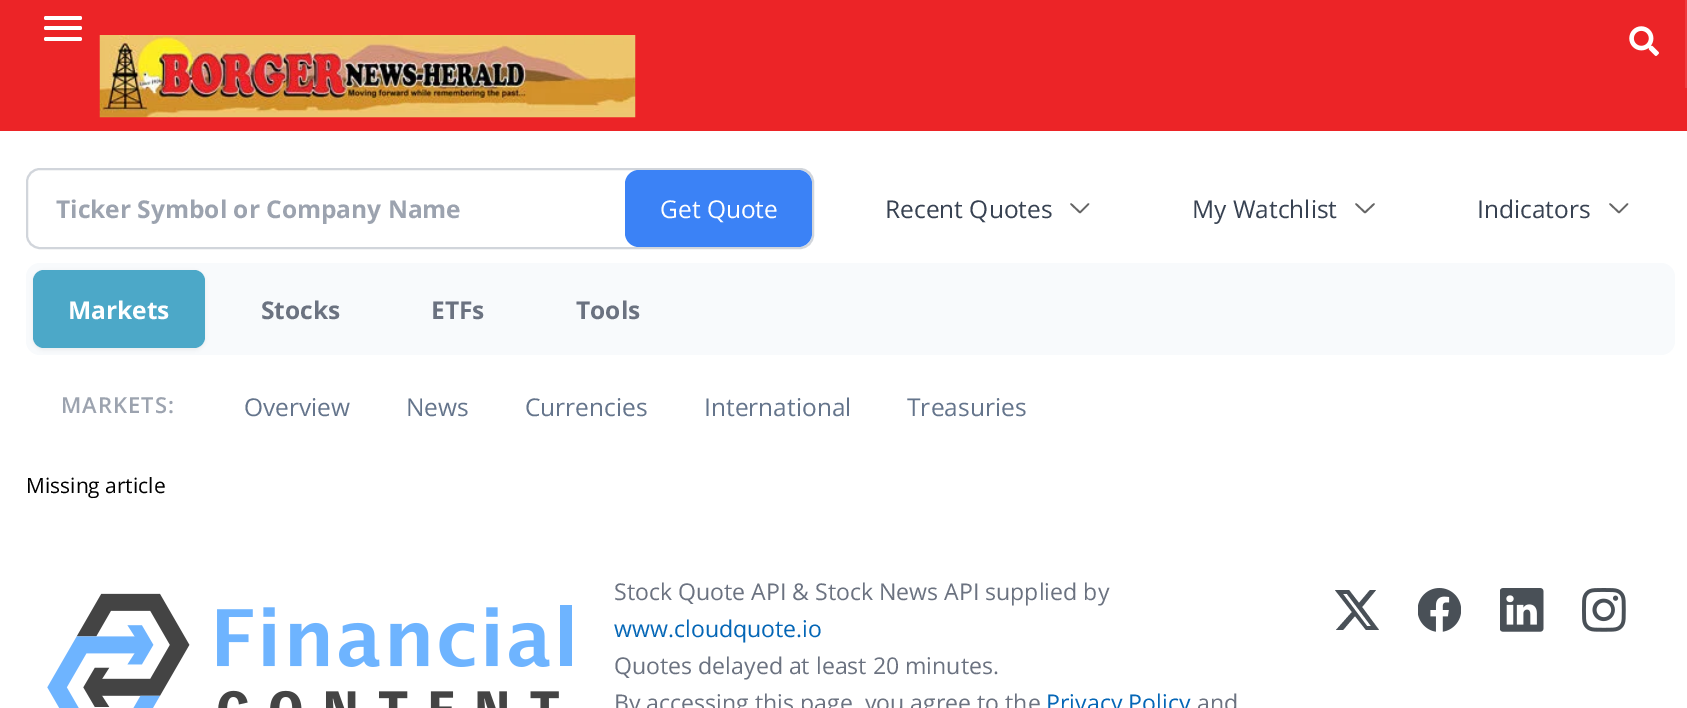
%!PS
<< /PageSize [1687 708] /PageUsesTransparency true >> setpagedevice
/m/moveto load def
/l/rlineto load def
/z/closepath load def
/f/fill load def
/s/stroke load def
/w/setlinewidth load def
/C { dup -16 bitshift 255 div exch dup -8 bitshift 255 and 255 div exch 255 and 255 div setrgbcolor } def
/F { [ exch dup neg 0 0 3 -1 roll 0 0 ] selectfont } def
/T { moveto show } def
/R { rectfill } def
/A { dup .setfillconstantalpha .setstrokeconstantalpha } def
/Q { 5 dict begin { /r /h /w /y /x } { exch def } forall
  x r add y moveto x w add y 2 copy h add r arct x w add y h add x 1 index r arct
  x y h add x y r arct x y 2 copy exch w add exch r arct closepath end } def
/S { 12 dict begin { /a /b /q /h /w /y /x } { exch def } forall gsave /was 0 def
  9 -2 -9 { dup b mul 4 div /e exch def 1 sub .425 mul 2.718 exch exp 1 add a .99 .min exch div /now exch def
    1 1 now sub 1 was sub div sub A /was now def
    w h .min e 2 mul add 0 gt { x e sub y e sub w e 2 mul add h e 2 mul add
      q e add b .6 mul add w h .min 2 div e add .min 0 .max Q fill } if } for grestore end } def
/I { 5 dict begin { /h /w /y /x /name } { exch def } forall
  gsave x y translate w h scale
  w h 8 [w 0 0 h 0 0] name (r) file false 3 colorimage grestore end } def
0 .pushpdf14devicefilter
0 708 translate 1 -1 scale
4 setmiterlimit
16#FFFFFF C
0 0 1687 708 R
16#EC2427 C
0 0 1687 131 R
16#FFFFFF C
44 16 38 4 2 Q f
44 26 38 4 2 Q f
44 37 38 4 2 Q f
16#EE3A3D C
1685 0 2 88 R
(1.rgb) 1629 26 30 30 I
(2.rgb) 99 35 537 83 I
16#D1D5DB C
2 w
27 169 786 79 13 Q s
/OpenSans-Bold 24.5 F
16#9CA3AF C
(Ticker Symbol or Company Name) 56 218 T
16#3B82F6 C
625 170 187 77 14 Q f
/OpenSans-Regular 24.5 F
16#FFFFFF C
(Get Quote) 660 218 T
16#374151 C
(Recent Quotes) 885 218 T
16#666666 C
1.7 w
1 setlinecap
1 setlinejoin
1088.5 204 m -8.5 8.5 l -9 -8.5 l s
16#374151 C
(My Watchlist) 1192 218 T
16#666666 C
1374 204 m -9 8.5 l -9 -8.5 l s
16#374151 C
(Indicators) 1477 218 T
16#666666 C
1627.5 204 m -8.5 8.5 l -9 -8.5 l s
16#F8FAFC C
26 263 1649 92 14 Q f
16#000000 C
33 271 172 79 11 2 .05 S
16#4CA8C8 C
33 270 172 78 11 Q f
/OpenSans-Bold 24.5 F
16#FFFFFF C
(Markets) 68 319 T
16#6B7280 C
(Stocks) 261 319 T
(ETFs) 431 319 T
(Tools) 576 319 T
/OpenSans-SemiBold 22 F
16#9CA3AF C
61 413 m 1 0 (MARKETS:) ashow
/OpenSans-Regular 24.5 F
16#64748B C
(Overview) 244 416 T
(News) 406 416 T
(Currencies) 525 416 T
(International) 704 416 T
(Treasuries) 907 416 T
/OpenSans-Regular 21 F
16#000000 C
(Missing article) 26 493 T
(3.rgb) 47 593 525 115 I
/OpenSans-Regular 23.1 F
16#6B7280 C
(Stock Quote API & Stock News API supplied by) 614 600 T
16#0466B6 C
(www.cloudquote.io) 614 637 T
16#6B7280 C
(Quotes delayed at least 20 minutes.) 614 674 T
(By accessing this page, you agree to the) 614 711 T
16#0466B6 C
(Privacy Policy) 1046 711 T
16#6B7280 C
(and) 1197 711 T
16#495057 C
1370 590 m 6 0 l -14 17 l 17 23 l -13 0 l -11 -14 l -12 14 l -7 0 l 16 -18 l -17 -22 l 14 0 l 10 13 l z 1367 626 m 4 0 l -24 -32 l -4 0 l z f
(4.rgb) 1418 588 43 44 I
(5.rgb) 1500 588 44 44 I
(6.rgb) 1582 588 44 44 I
.poppdf14devicefilter showpage
